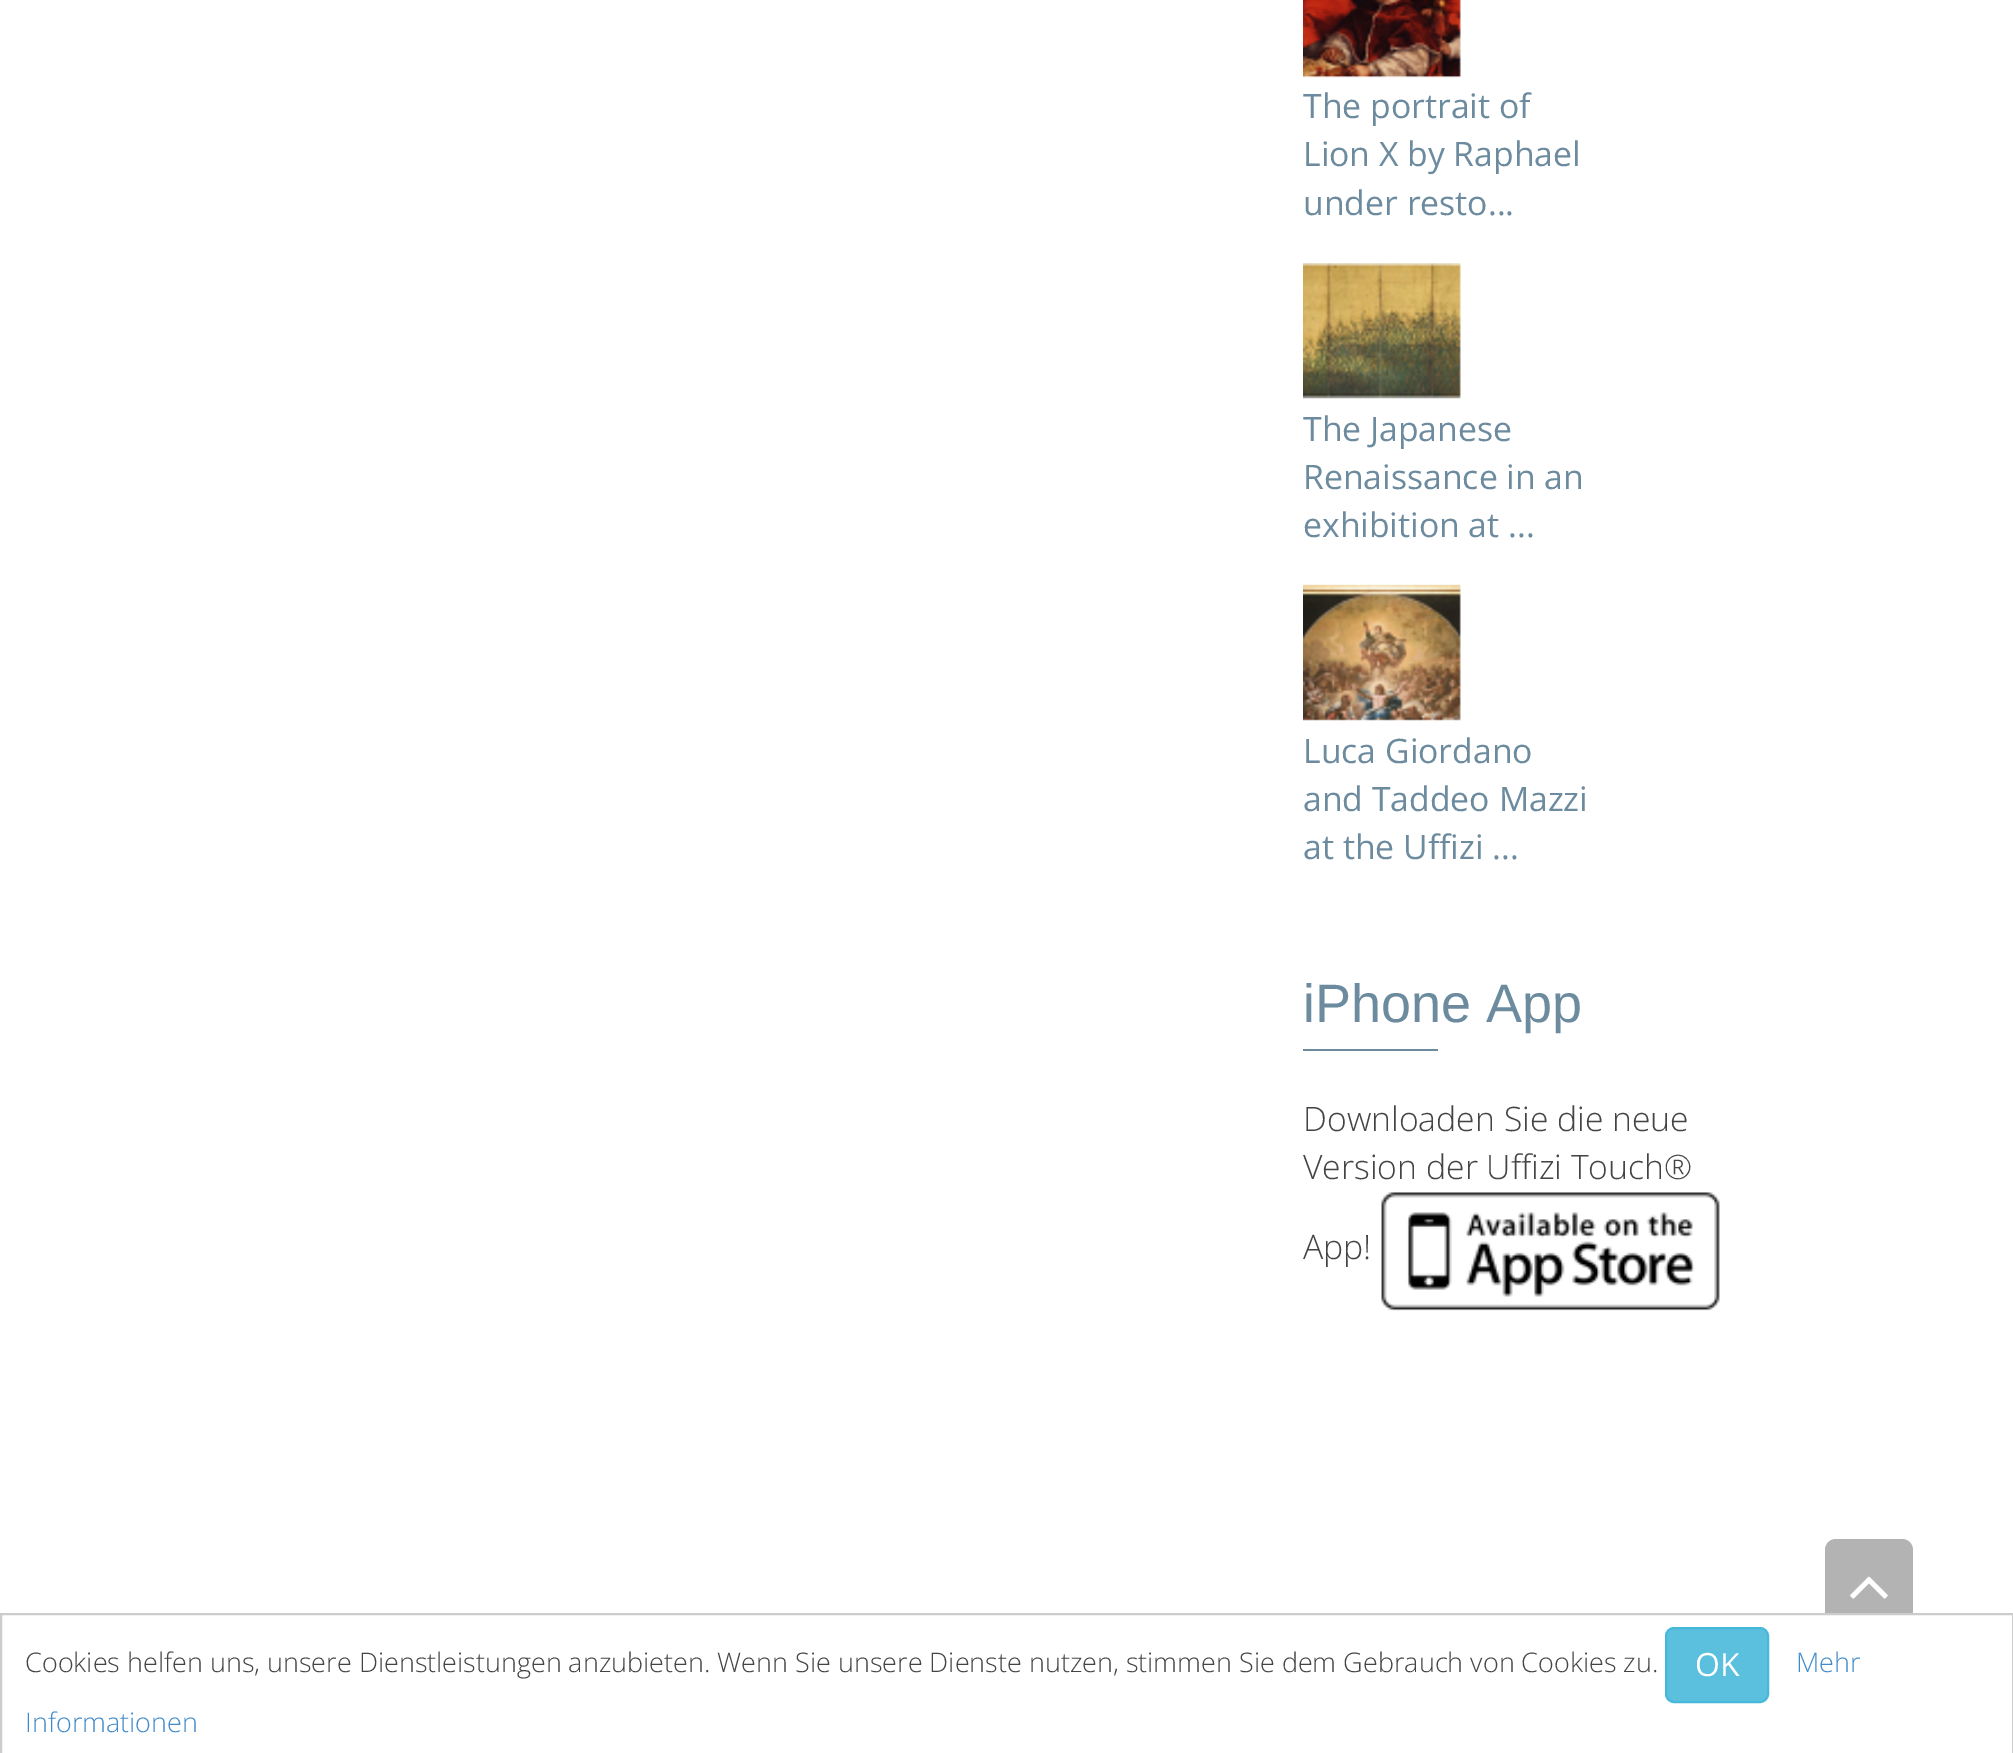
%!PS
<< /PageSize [2013 1753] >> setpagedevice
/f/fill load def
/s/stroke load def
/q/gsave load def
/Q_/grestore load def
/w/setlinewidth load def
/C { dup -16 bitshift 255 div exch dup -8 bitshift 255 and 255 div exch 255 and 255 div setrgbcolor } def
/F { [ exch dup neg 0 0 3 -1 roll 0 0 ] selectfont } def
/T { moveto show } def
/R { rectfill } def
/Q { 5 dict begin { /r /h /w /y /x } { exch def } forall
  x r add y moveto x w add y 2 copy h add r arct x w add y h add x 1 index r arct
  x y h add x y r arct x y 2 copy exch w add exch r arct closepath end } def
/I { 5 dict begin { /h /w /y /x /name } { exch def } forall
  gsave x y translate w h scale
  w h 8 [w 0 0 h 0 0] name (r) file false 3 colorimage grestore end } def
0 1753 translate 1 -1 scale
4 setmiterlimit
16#FFFFFF C
0 0 2013 1753 R
(1.rgb) 1303 0 158 78 I
/OpenSans-Regular 33.75 F
16#6D8B9F C
(The portrait of) 1303 118 T
(Lion X by Raphael) 1303 166 T
(under resto...) 1303 215 T
(2.rgb) 1303 263 158 136 I
(The Japanese) 1303 441 T
(Renaissance in an) 1303 489 T
(exhibition at ...) 1303 537 T
(3.rgb) 1303 584 158 137 I
(Luca Giordano) 1303 763 T
(and Taddeo Mazzi) 1303 811 T
(at the Uffizi ...) 1303 859 T
/LiberationSans-Regular 54 F
(iPhone App) 1303 1022 T
1303 1049 135 2 R
/OpenSans-Light 33.75 F
16#444444 C
(Downloaden Sie die neue) 1303 1131 T
(Version der Uffizi Touch®) 1303 1179 T
(App!) 1303 1259 T
(4.rgb) 1381 1192 339 119 I
16#B3B3B3 C
1825 1539 88 104 11 Q f
(5.rgb) 1850 1576 38 23 I
16#FFFFFF C
1825 1615 88 28 R
16#CCCCCC C
2 w
1 1614 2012 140 rectstroke
/OpenSans-Light 27 F
16#444444 C
(Cookies helfen uns, unsere Dienstleistungen anzubieten. Wenn Sie unsere Dienste nutzen, stimmen Sie dem Gebrauch von Cookies zu.) 25 1672 T
16#5BC0DE C
1666 1628 102 74 8 Q q f Q_
16#46B8DA C
s
/OpenSans-Regular 32 F
16#FFFFFF C
(OK) 1695 1676 T
/OpenSans-Light 27 F
16#428BCA C
(Mehr) 1796 1672 T
(Informationen) 25 1732 T
showpage
